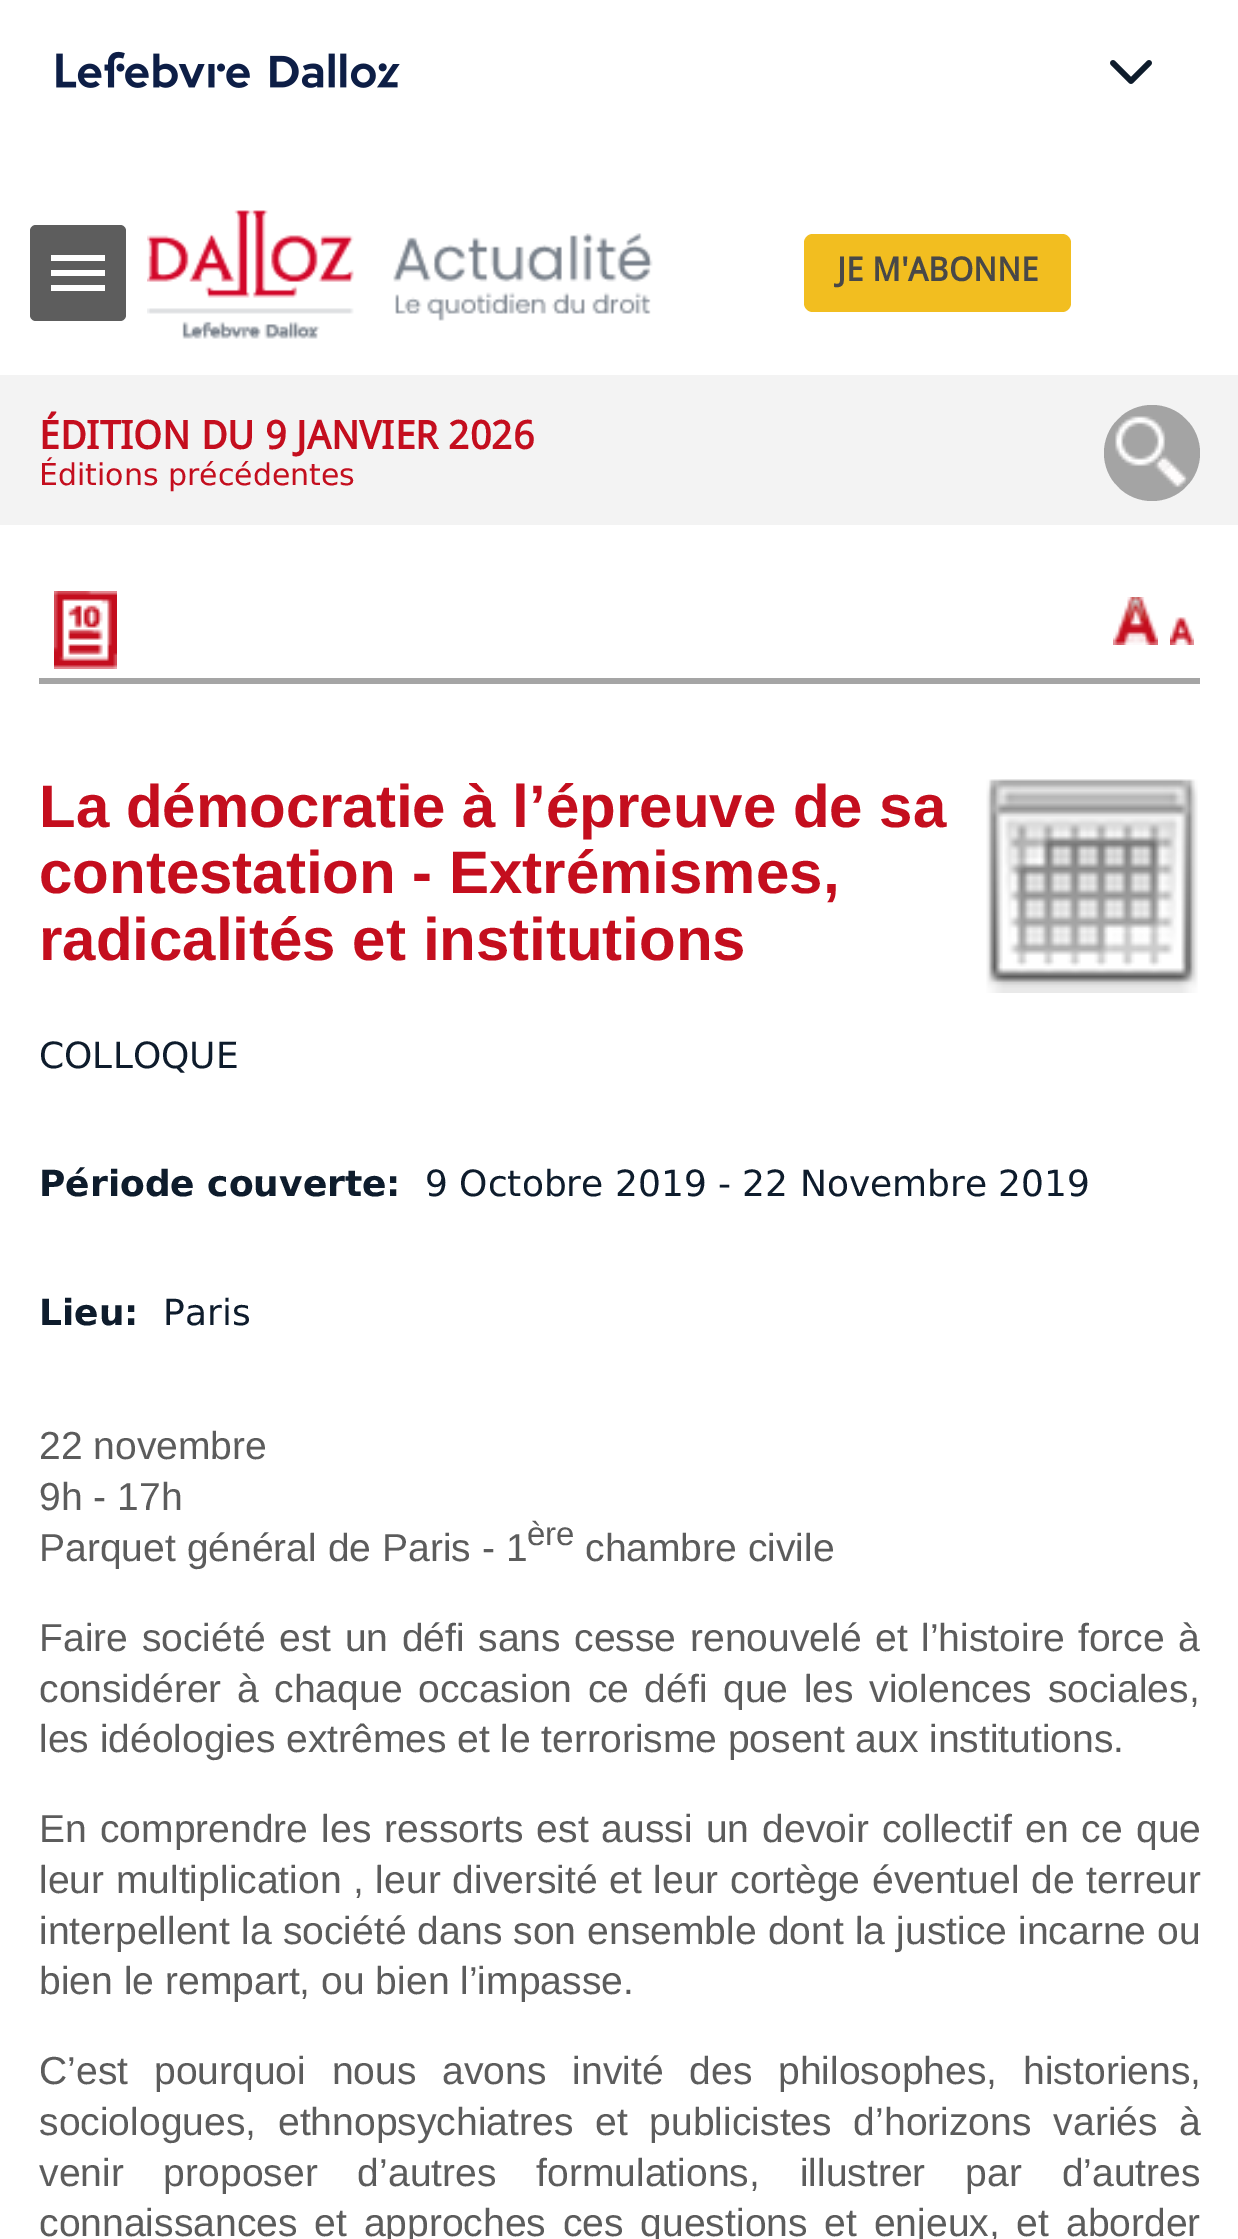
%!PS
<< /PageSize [1238 2239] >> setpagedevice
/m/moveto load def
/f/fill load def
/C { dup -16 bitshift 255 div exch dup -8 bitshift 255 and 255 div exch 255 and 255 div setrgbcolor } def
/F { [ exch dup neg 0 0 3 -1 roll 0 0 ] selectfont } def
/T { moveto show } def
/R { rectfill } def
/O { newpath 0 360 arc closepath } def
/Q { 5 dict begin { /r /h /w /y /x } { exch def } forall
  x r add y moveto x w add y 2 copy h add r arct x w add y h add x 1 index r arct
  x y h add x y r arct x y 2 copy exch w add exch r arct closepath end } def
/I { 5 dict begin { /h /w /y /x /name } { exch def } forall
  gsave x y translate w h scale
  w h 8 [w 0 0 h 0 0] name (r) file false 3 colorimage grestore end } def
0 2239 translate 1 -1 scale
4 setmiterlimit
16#FFFFFF C
0 0 1238 2239 R
(1.rgb) 56 51 344 37 I
(2.rgb) 1110 60 42 24 I
16#5D5D5D C
30 225 96 96 6 Q f
16#FFFFFF C
51 270 54 6 R
51 255 54 6 R
51 285 54 6 R
(3.rgb) 147 210 506 129 I
16#F2BE20 C
804 234 267 78 9 Q f
/DroidSans-Bold 33 F
16#484848 C
(JE M'ABONNE) 837 281 T
16#F3F3F3 C
0 375 1238 150 R
/DroidSans-Bold 39.05 F
16#C40E1E C
(ÉDITION DU 9 JANVIER 2026) 39 449 T
/DejaVuSans-Regular 30 F
(Éditions précédentes) 39 485 T
16#A4A4A4 C
1152 453 48 O f
(4.rgb) 1115 416 74 72 I
(5.rgb) 54 591 63 78 I
16#A5A5A5 C
39 678 1161 6 R
(6.rgb) 1113 597 45 48 I
(7.rgb) 1170 617 24 28 I
/LiberationSans-Bold 60 F
16#C40E1E C
(La démocratie à l’épreuve de sa) 39 827 T
(contestation - Extrémismes,) 39 893 T
(radicalités et institutions) 39 960 T
(8.rgb) 986 779 212 214 I
/DejaVuSans-Regular 36 F
16#0E1C2C C
(COLLOQUE) 39 1068 T
/DejaVuSans-Bold 36 F
(Période couverte:) 39 1196 T
/DejaVuSans-Regular 36 F
(9 Octobre 2019 - 22 Novembre 2019) 425 1196 T
/DejaVuSans-Bold 36 F
(Lieu:) 39 1325 T
/DejaVuSans-Regular 36 F
(Paris) 163 1325 T
/LiberationSans-Regular 39.05 F
16#5C5C5C C
(22 novembre) 39 1459 T
(9h - 17h) 39 1510 T
(Parquet général de Paris - 1) 39 1561 T
/LiberationSans-Regular 33 F
(ère) 527 1545 T
/LiberationSans-Regular 39.05 F
(chambre civile) 585 1561 T
39 1651 m 2.75 0 32 (Faire société est un défi sans cesse renouvelé et l’histoire force à) widthshow
39 1702 m 4.75 0 32 (considérer à chaque occasion ce défi que les violences sociales,) widthshow
39 1752 m -.25 0 32 (les idéologies extrêmes et le terrorisme posent aux institutions.) widthshow
39 1842 m 2.25 0 32 (En comprendre les ressorts est aussi un devoir collectif en ce que) widthshow
39 1893 m .75 0 32 (leur multiplication , leur diversité et leur cortège éventuel de terreur) widthshow
39 1944 m .25 0 32 (interpellent la société dans son ensemble dont la justice incarne ou) widthshow
(bien le rempart, ou bien l’impasse.) 39 1994 T
39 2084 m 15 0 32 (C’est pourquoi nous avons invité des philosophes, historiens,) widthshow
39 2135 m 11 0 32 (sociologues, ethnopsychiatres et publicistes d’horizons variés à) widthshow
39 2186 m 29 0 32 (venir proposer d’autres formulations, illustrer par d’autres) widthshow
39 2236 m 6 0 32 (connaissances et approches ces questions et enjeux, et aborder) widthshow
showpage
